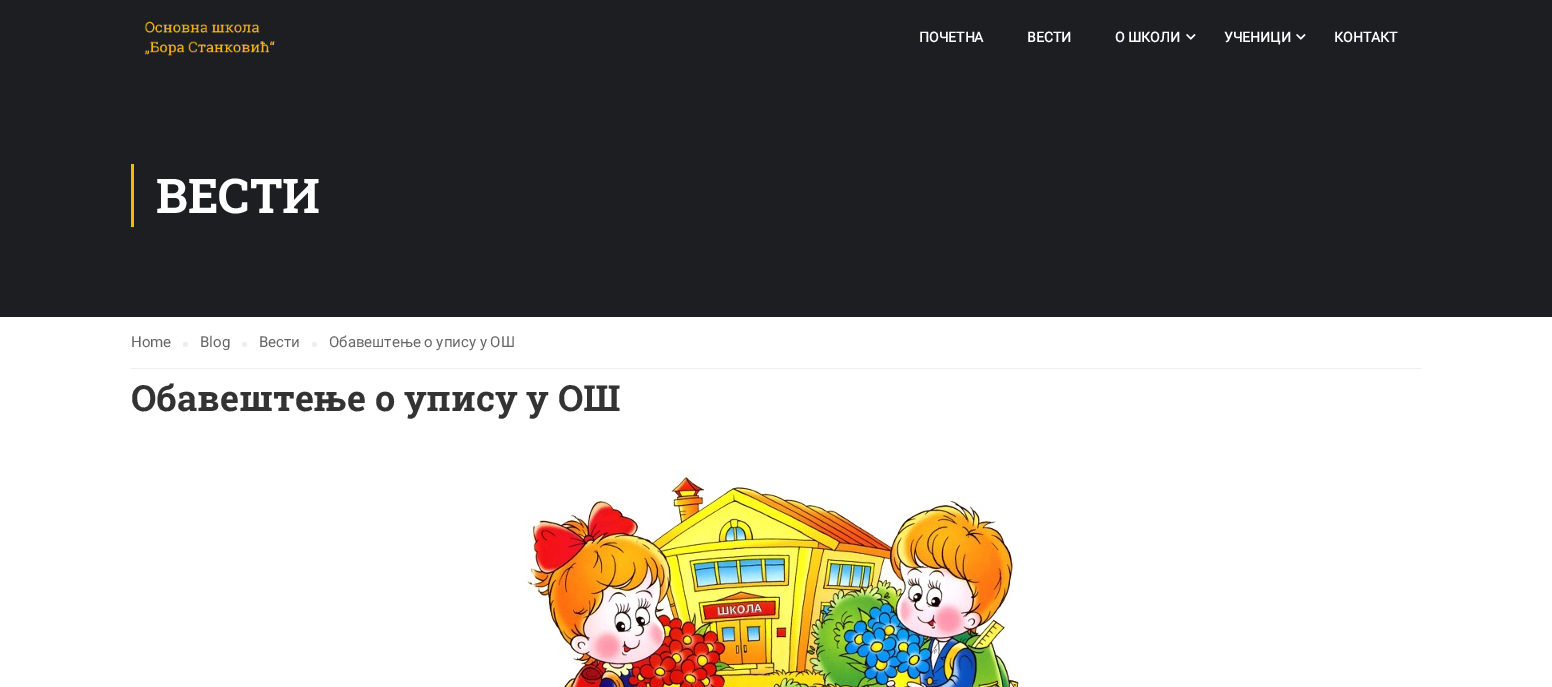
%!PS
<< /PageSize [1552 687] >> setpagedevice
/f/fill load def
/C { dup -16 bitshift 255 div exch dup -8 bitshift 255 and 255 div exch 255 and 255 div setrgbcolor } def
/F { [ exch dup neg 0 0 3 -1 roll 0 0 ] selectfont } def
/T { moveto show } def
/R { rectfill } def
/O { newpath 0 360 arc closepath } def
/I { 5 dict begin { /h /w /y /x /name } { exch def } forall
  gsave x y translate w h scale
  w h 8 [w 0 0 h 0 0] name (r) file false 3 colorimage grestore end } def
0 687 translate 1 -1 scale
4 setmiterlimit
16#FFFFFF C
0 0 1552 687 R
16#1C1E22 C
0 0 1552 317 R
(1.rgb) 144 21 131 35 I
/Roboto-Bold 14 F
16#FFFFFF C
(ПОЧЕТНА) 919 42 T
(ВЕСТИ) 1027 42 T
(О ШКОЛИ) 1115 42 T
(2.rgb) 1186 34 10 6 I
(УЧЕНИЦИ) 1224 42 T
(2.rgb) 1296 34 10 6 I
(КОНТАКТ) 1334 42 T
16#FFB606 C
131 164 3 63 R
/RobotoSlab-Bold 48 F
16#FFFFFF C
(ВЕСТИ) 156 213 T
16#EEEEEE C
131 368 1290 1 R
/Roboto-Regular 15 F
16#666666 C
(Home) 131 347 T
16#EEEEEE C
185.5 344.5 2.5 O f
16#666666 C
(Blog) 200 347 T
16#EEEEEE C
244.5 344.5 2.5 O f
16#666666 C
(Вести) 259 347 T
16#EEEEEE C
314.5 344.5 2.5 O f
16#666666 C
(Обавештење о упису у ОШ) 329 347 T
/RobotoSlab-Bold 36 F
16#333333 C
(Обавештење о упису у ОШ) 131 411 T
(3.rgb) 526 468 496 219 I
showpage
